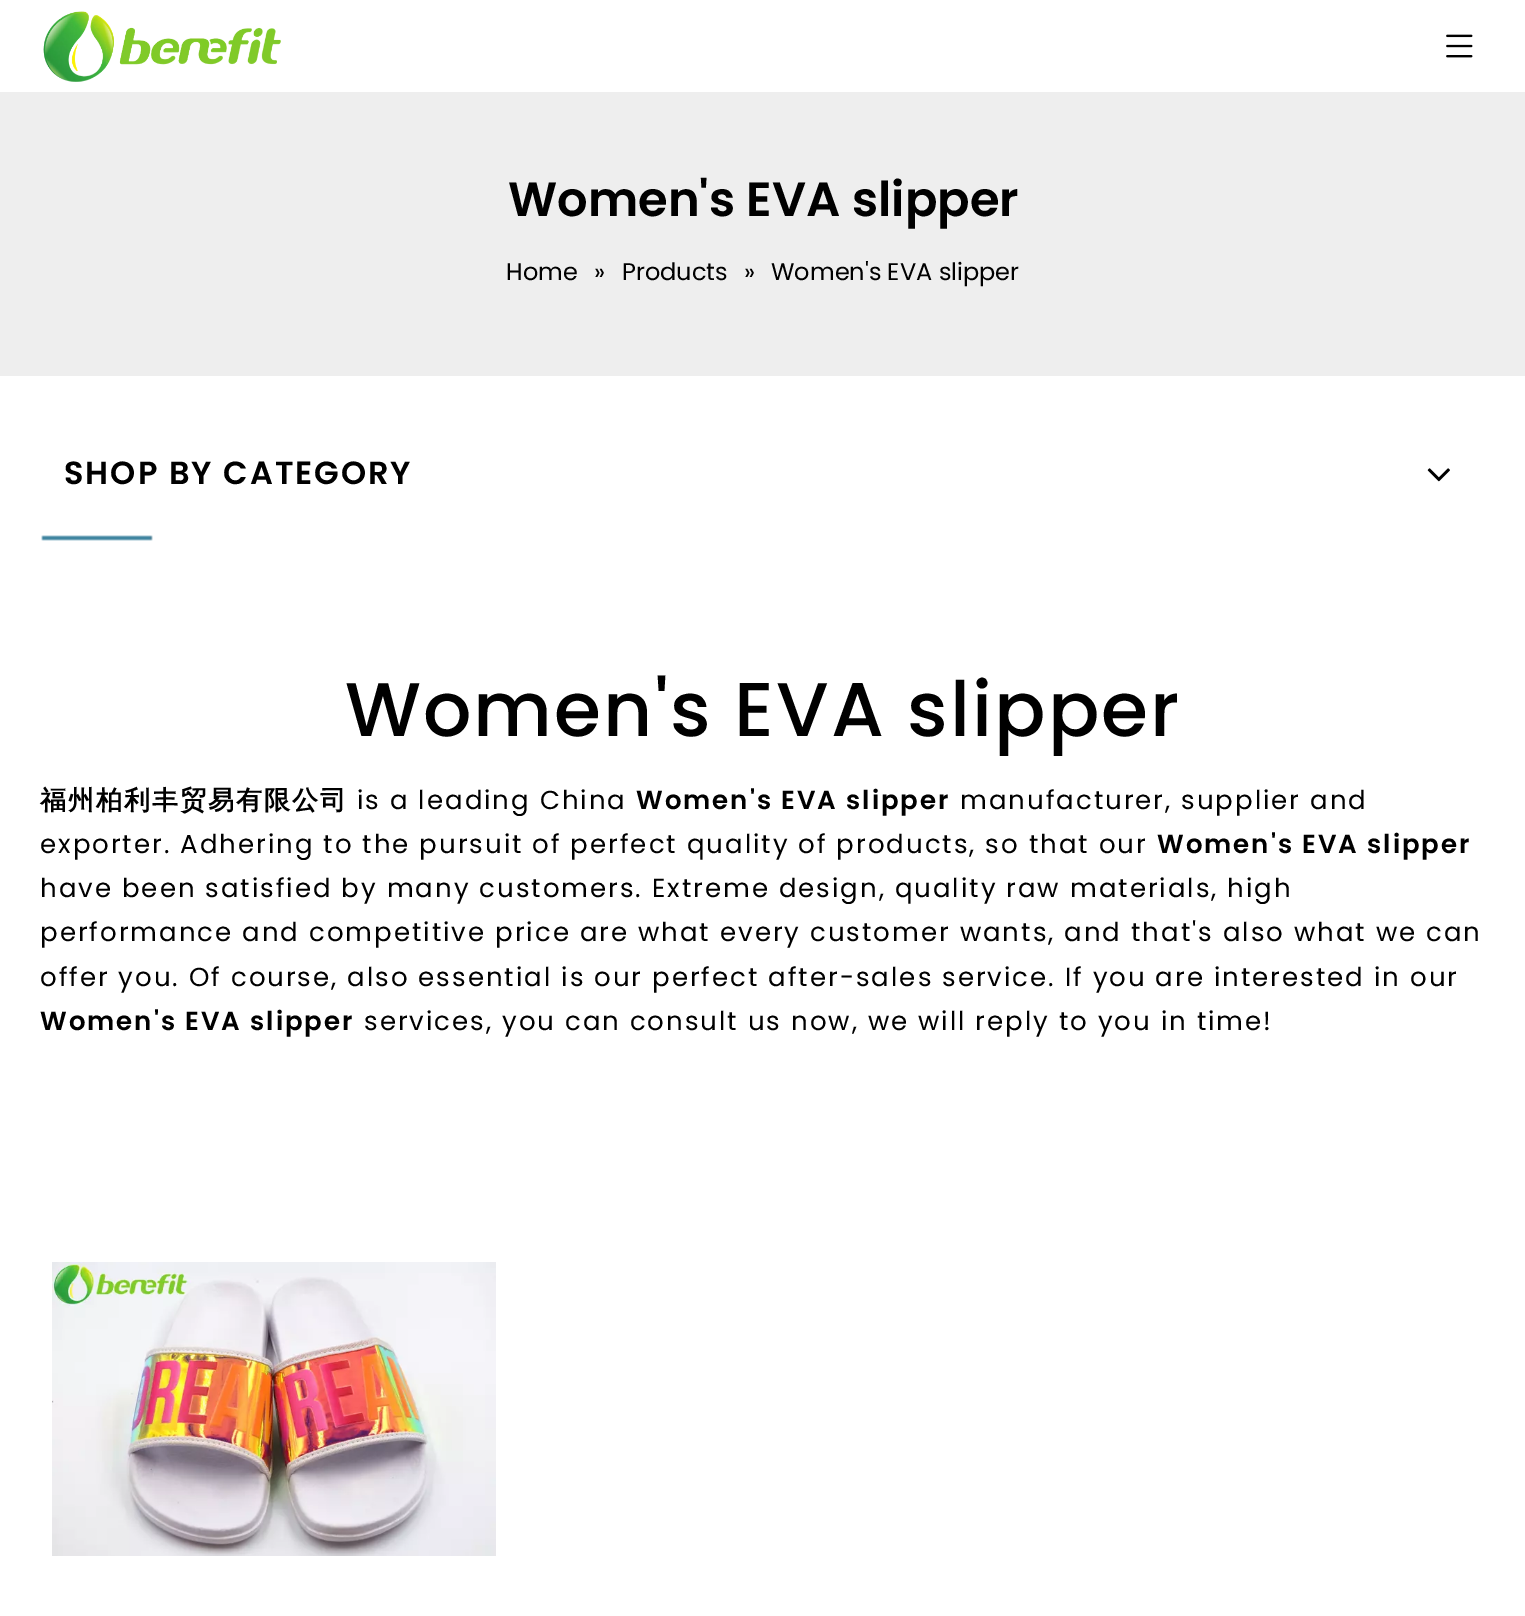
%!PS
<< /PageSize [1525 1616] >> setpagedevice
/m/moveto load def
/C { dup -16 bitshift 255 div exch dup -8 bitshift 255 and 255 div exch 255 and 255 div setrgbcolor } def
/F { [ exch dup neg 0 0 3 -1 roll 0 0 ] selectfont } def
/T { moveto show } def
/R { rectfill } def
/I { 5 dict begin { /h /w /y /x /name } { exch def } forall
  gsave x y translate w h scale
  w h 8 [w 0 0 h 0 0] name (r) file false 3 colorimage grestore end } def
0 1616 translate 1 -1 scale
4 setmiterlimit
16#FFFFFF C
0 0 1525 1616 R
(1.rgb) 43 11 238 71 I
(2.rgb) 1446 34 27 24 I
16#EEEEEE C
0 92 1525 284 R
/Poppins-SemiBold 48 F
16#000000 C
(Women's EVA slipper) 508 216 T
/Poppins-Regular 24 F
(Home) 506 280 T
(») 594 280 T
(Products) 622 280 T
(») 744 280 T
(Women's EVA slipper) 771 280 T
(3.rgb) 41 535 112 6 I
/Poppins-SemiBold 32 F
64 484 m 2 0 (SHOP BY CATEGORY) ashow
(4.rgb) 1427 468 23 14 I
/Poppins-Medium 76 F
345 736 m 2 0 (Women's EVA slipper) ashow
/WenQuanYiZenHei-Bold 26 F
40 809 m 2 0 (福州柏利丰贸易有限公司) ashow
/Poppins-Regular 26 F
357 809 m 2 0 (is a leading China) ashow
/Poppins-SemiBold 26 F
636 809 m 2 0 (Women's EVA slipper) ashow
/Poppins-Regular 26 F
960 809 m 2 0 (manufacturer, supplier and) ashow
40 853 m 2 0 (exporter. Adhering to the pursuit of perfect quality of products, so that our) ashow
/Poppins-SemiBold 26 F
1157 853 m 2 0 (Women's EVA slipper) ashow
/Poppins-Regular 26 F
40 897 m 2 0 (have been satisfied by many customers. Extreme design, quality raw materials, high) ashow
40 941 m 2 0 (performance and competitive price are what every customer wants, and that's also what we can) ashow
40 986 m 2 0 (offer you. Of course, also essential is our perfect after-sales service. If you are interested in our) ashow
/Poppins-SemiBold 26 F
40 1030 m 2 0 (Women's EVA slipper) ashow
/Poppins-Regular 26 F
364 1030 m 2 0 (services, you can consult us now, we will reply to you in time!) ashow
(5.rgb) 52 1262 444 294 I
showpage
